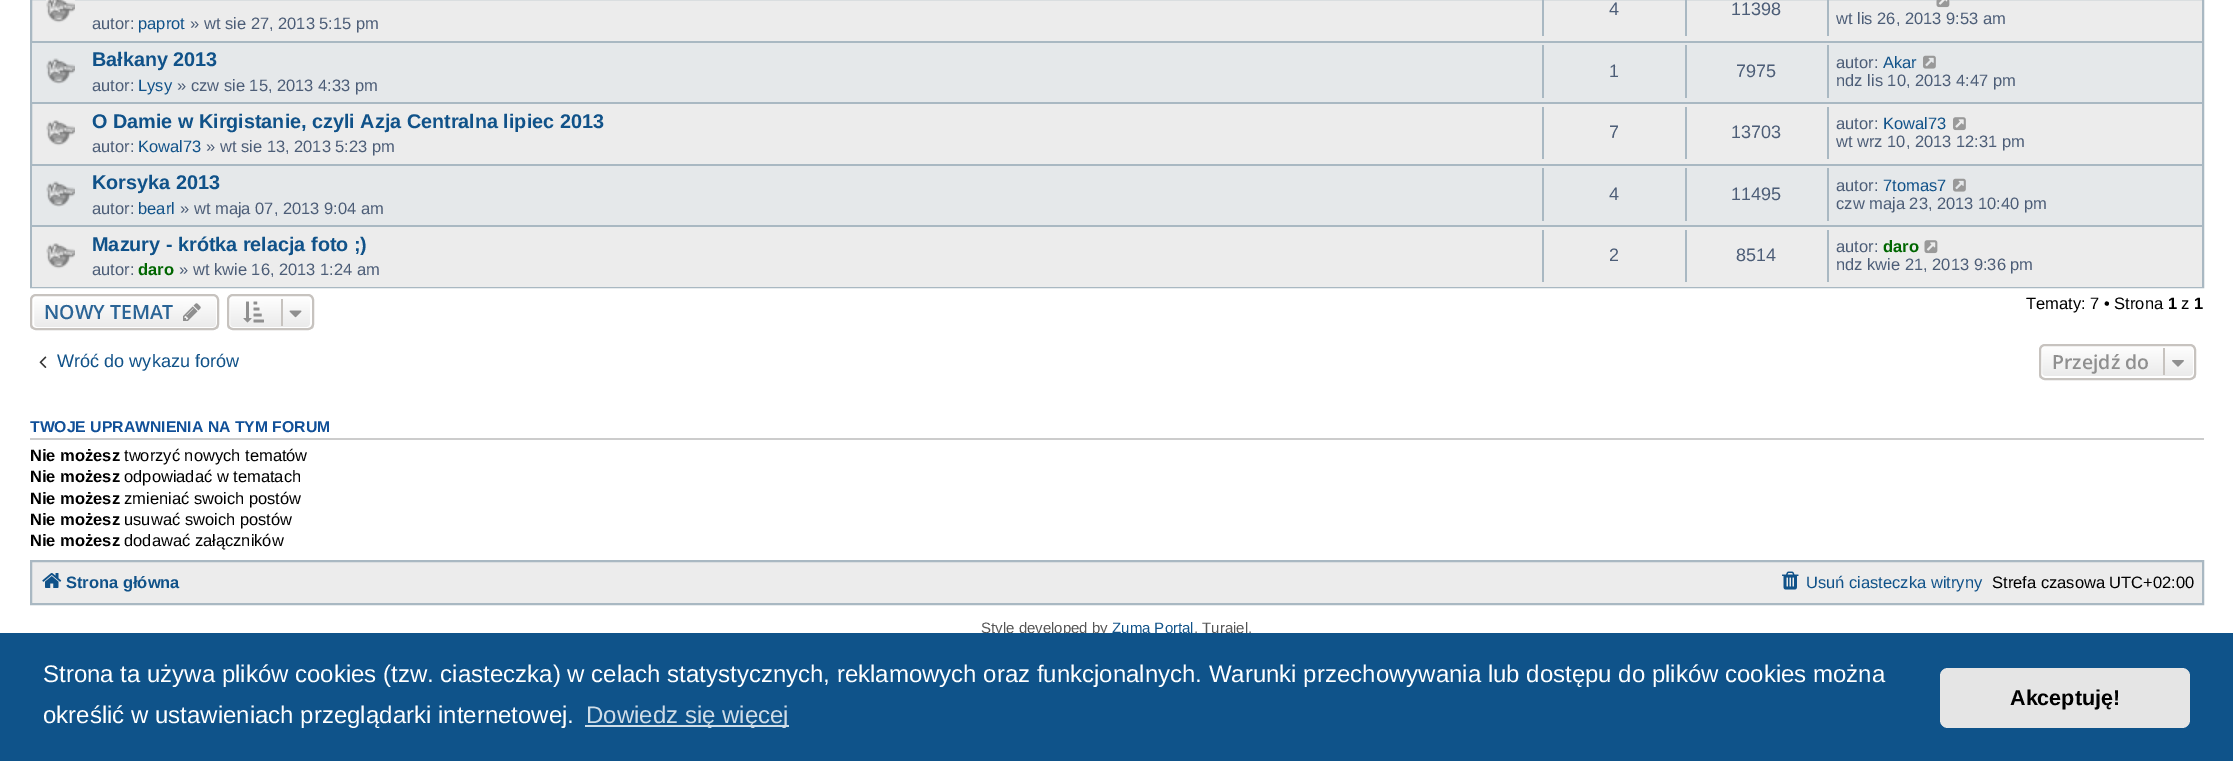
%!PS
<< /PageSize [2233 761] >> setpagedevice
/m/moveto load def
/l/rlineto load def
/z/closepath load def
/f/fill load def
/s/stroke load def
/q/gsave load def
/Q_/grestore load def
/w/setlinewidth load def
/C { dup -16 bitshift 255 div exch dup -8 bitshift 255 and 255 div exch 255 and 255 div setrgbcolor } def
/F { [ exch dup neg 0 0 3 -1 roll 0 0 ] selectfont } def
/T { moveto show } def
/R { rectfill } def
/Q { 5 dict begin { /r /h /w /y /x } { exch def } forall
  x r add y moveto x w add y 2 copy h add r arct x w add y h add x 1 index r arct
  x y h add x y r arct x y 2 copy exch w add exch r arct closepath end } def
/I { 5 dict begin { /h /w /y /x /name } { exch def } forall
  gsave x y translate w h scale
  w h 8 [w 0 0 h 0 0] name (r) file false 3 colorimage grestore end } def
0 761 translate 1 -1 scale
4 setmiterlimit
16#FFFFFF C
0 0 2233 761 R
16#ECECEC C
32 0 2170 164 R
16#A9B8C2 C
2 w
31 -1 2172 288 rectstroke
(1.rgb) 46 0 29 23 I
1542 0 2 36 R
/LiberationSans-Regular 18 F
16#4C5D77 C
(4) 1609 15 T
16#A9B8C2 C
1685 0 2 36 R
16#4C5D77 C
(11398) 1731 15 T
/LiberationSans-Regular 16.5 F
(autor:) 92 29 T
16#105289 C
(paprot) 138 29 T
16#4C5D77 C
(» wt sie 27, 2013 5:15 pm) 190 29 T
16#A9B8C2 C
1827 0 2 36 R
(2.rgb) 1936 0 14 8 I
16#4C5D77 C
(wt lis 26, 2013 9:53 am) 1836 24 T
16#E5E8EA C
32 43 2170 59 R
16#A9B8C2 C
32 41 2170 2 R
(3.rgb) 46 58 29 26 I
/LiberationSans-Bold 19.8 F
16#105289 C
(Bałkany 2013) 92 66 T
/LiberationSans-Regular 16.5 F
16#4C5D77 C
(autor:) 92 91 T
16#105289 C
(Lysy) 138 91 T
16#4C5D77 C
(» czw sie 15, 2013 4:33 pm) 177 91 T
16#A9B8C2 C
1542 45 2 53 R
/LiberationSans-Regular 18 F
16#4C5D77 C
(1) 1609 77 T
16#A9B8C2 C
1685 45 2 53 R
16#4C5D77 C
(7975) 1736 77 T
16#A9B8C2 C
1827 45 2 53 R
/LiberationSans-Regular 16.5 F
16#4C5D77 C
(autor:) 1836 68 T
16#105289 C
(Akar) 1883 68 T
(4.rgb) 1923 55 13 14 I
16#4C5D77 C
(ndz lis 10, 2013 4:47 pm) 1836 86 T
16#A9B8C2 C
32 102 2170 2 R
(5.rgb) 46 120 29 26 I
/LiberationSans-Bold 19.8 F
16#105289 C
(O Damie w Kirgistanie, czyli Azja Centralna lipiec 2013) 92 128 T
/LiberationSans-Regular 16.5 F
16#4C5D77 C
(autor:) 92 152 T
16#105289 C
(Kowal73) 138 152 T
16#4C5D77 C
(» wt sie 13, 2013 5:23 pm) 206 152 T
16#A9B8C2 C
1542 107 2 52 R
/LiberationSans-Regular 18 F
16#4C5D77 C
(7) 1609 138 T
16#A9B8C2 C
1685 107 2 52 R
16#4C5D77 C
(13703) 1731 138 T
16#A9B8C2 C
1827 107 2 52 R
/LiberationSans-Regular 16.5 F
16#4C5D77 C
(autor:) 1836 129 T
16#105289 C
(Kowal73) 1883 129 T
(6.rgb) 1953 117 13 14 I
16#4C5D77 C
(wt wrz 10, 2013 12:31 pm) 1836 147 T
16#E5E8EA C
32 166 2170 59 R
16#A9B8C2 C
32 164 2170 2 R
(3.rgb) 46 181 29 26 I
/LiberationSans-Bold 19.8 F
16#105289 C
(Korsyka 2013) 92 189 T
/LiberationSans-Regular 16.5 F
16#4C5D77 C
(autor:) 92 214 T
16#105289 C
(bearl) 138 214 T
16#4C5D77 C
(» wt maja 07, 2013 9:04 am) 180 214 T
16#A9B8C2 C
1542 168 2 53 R
/LiberationSans-Regular 18 F
16#4C5D77 C
(4) 1609 200 T
16#A9B8C2 C
1685 168 2 53 R
16#4C5D77 C
(11495) 1731 200 T
16#A9B8C2 C
1827 168 2 53 R
/LiberationSans-Regular 16.5 F
16#4C5D77 C
(autor:) 1836 191 T
16#105289 C
(7tomas7) 1883 191 T
(4.rgb) 1953 178 13 14 I
16#4C5D77 C
(czw maja 23, 2013 10:40 pm) 1836 209 T
16#ECECEC C
32 227 2170 60 R
16#A9B8C2 C
32 225 2170 2 R
(5.rgb) 46 243 29 26 I
/LiberationSans-Bold 19.8 F
16#105289 C
(Mazury - krótka relacja foto ;\)) 92 251 T
/LiberationSans-Regular 16.5 F
16#4C5D77 C
(autor:) 92 275 T
/LiberationSans-Bold 16.5 F
16#006600 C
(daro) 138 275 T
/LiberationSans-Regular 16.5 F
16#4C5D77 C
(» wt kwie 16, 2013 1:24 am) 179 275 T
16#A9B8C2 C
1542 230 2 52 R
/LiberationSans-Regular 18 F
16#4C5D77 C
(2) 1609 261 T
16#A9B8C2 C
1685 230 2 52 R
16#4C5D77 C
(8514) 1736 261 T
16#A9B8C2 C
1827 230 2 52 R
/LiberationSans-Regular 16.5 F
16#4C5D77 C
(autor:) 1836 252 T
/LiberationSans-Bold 16.5 F
16#006600 C
(daro) 1883 252 T
(7.rgb) 1924 240 14 14 I
/LiberationSans-Regular 16.5 F
16#4C5D77 C
(ndz kwie 21, 2013 9:36 pm) 1836 270 T
q
30 294 189 36 6 Q clip newpath
q 30 296 m 189 0 l 0 33 l -189 0 l z clip newpath
<< /ShadingType 2 /ColorSpace /DeviceRGB /Coords [125 296 125 329] /Extend [true true] /Function << /FunctionType 2 /Domain [0 1] /C0 [1 1 1] /C1 [.914 .914 .914] /N 1 >> >> shfill Q_
Q_
16#FFFFFF C
33 297 184 31 4 Q s
16#C7C3BF C
31 295 187 34 5 Q s
/OpenSans-SemiBold 19.5 F
16#2A6496 C
(NOWY TEMAT) 44 319 T
(8.rgb) 183 303 18 18 I
q
227 294 87 36 6 Q clip newpath
q 227 296 m 87 0 l 0 33 l -87 0 l z clip newpath
<< /ShadingType 2 /ColorSpace /DeviceRGB /Coords [270 296 270 329] /Extend [true true] /Function << /FunctionType 2 /Domain [0 1] /C0 [1 1 1] /C1 [.914 .914 .914] /N 1 >> >> shfill Q_
Q_
16#FFFFFF C
229 297 82 31 4 Q s
16#C7C3BF C
228 295 85 34 5 Q s
(9.rgb) 243 301 21 22 I
281 299 2 27 R
(10.rgb) 289 310 13 8 I
/LiberationSans-Regular 16.5 F
16#000000 C
(Tematy: 7 • Strona) 2026 309 T
/LiberationSans-Bold 16.5 F
(1) 2168 309 T
/LiberationSans-Regular 16.5 F
(z) 2181 309 T
/LiberationSans-Bold 16.5 F
(1) 2194 309 T
(11.rgb) 39 356 8 12 I
/LiberationSans-Regular 18.1 F
16#105289 C
(Wróć do wykazu forów) 57 367 T
q
2039 344 157 36 6 Q clip newpath
q 2039 345 m 157 0 l 0 33 l -157 0 l z clip newpath
<< /ShadingType 2 /ColorSpace /DeviceRGB /Coords [2117 345 2117 378] /Extend [true true] /Function << /FunctionType 2 /Domain [0 1] /C0 [1 1 1] /C1 [.914 .914 .914] /N 1 >> >> shfill Q_
Q_
16#FFFFFF C
2041 346 153 31 4 Q s
16#C7C3BF C
2040 345 155 34 5 Q s
/OpenSans-SemiBold 19.5 F
16#8F8F8F C
(Przejdź do) 2052 369 T
16#C7C3BF C
2163 348 2 27 R
(12.rgb) 2172 360 12 7 I
16#CCCCCC C
30 438 2174 2 R
/LiberationSans-Bold 15.75 F
16#115098 C
(TWOJE UPRAWNIENIA NA TYM FORUM) 30 432 T
/LiberationSans-Bold 16.5 F
16#000000 C
(Nie możesz) 30 461 T
/LiberationSans-Regular 16.5 F
(tworzyć nowych tematów) 124 461 T
/LiberationSans-Bold 16.5 F
(Nie możesz) 30 482 T
/LiberationSans-Regular 16.5 F
(odpowiadać w tematach) 124 482 T
/LiberationSans-Bold 16.5 F
(Nie możesz) 30 504 T
/LiberationSans-Regular 16.5 F
(zmieniać swoich postów) 124 504 T
/LiberationSans-Bold 16.5 F
(Nie możesz) 30 525 T
/LiberationSans-Regular 16.5 F
(usuwać swoich postów) 124 525 T
/LiberationSans-Bold 16.5 F
(Nie możesz) 30 546 T
/LiberationSans-Regular 16.5 F
(dodawać załączników) 124 546 T
16#ECECEC C
31 561 m 2172 0 l 0 43 l -2172 0 l z q f Q_
16#A9B8C2 C
s
(13.rgb) 42 573 20 15 I
/LiberationSans-Bold 16.5 F
16#105289 C
(Strona główna) 66 588 T
(14.rgb) 1782 571 17 19 I
/LiberationSans-Regular 16.5 F
(Usuń ciasteczka witryny) 1806 588 T
16#000000 C
(Strefa czasowa UTC+02:00) 1992 588 T
/LiberationSans-Regular 15 F
16#555555 C
(Style developed by) 981 633 T
16#105289 C
(Zuma Portal) 1112 633 T
16#555555 C
(, Turaiel,) 1194 633 T
16#0F538A C
0 633 2233 128 R
/LiberationSans-Regular 24 F
16#FFFFFF C
(Strona ta używa plików cookies \(tzw. ciasteczka\) w celach statystycznych, reklamowych oraz funkcjonalnych. Warunki przechowywania lub dostępu do plików cookies można) 43 682 T
(określić w ustawieniach przeglądarki internetowej.) 43 723 T
16#CFDDE8 C
585 725 204 2 R
(Dowiedz się więcej) 586 723 T
16#E5E5E5 C
1940 668 250 60 8 Q f
/LiberationSans-Bold 21.5 F
16#000000 C
(Akceptuję!) 2010 705 T
showpage
